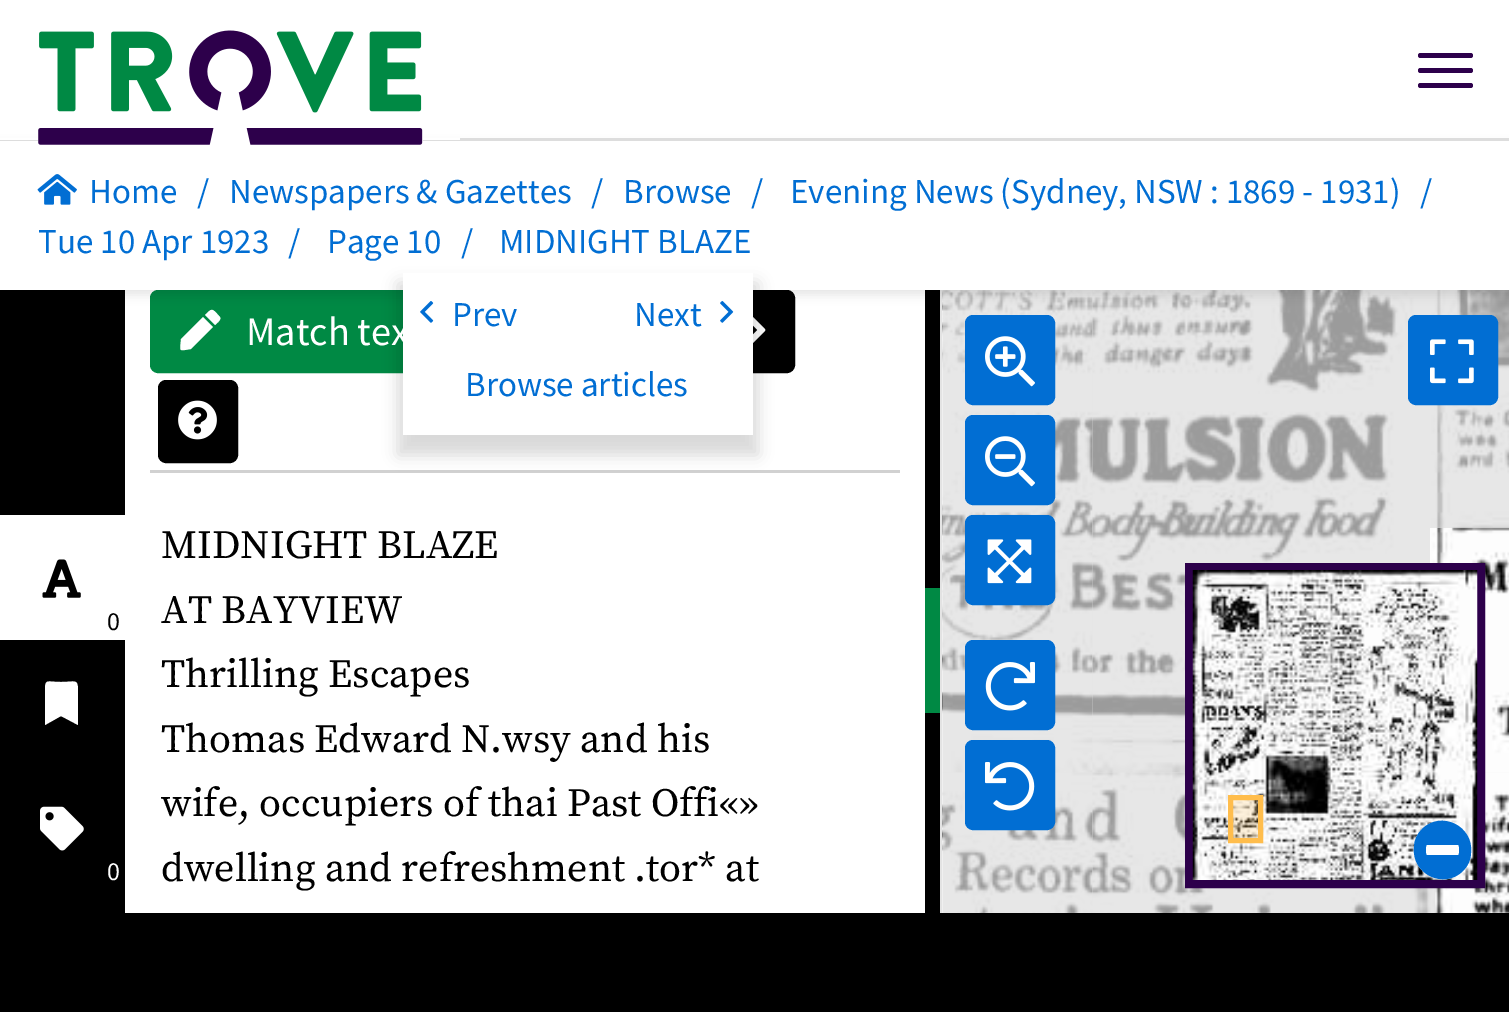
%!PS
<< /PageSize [1509 1012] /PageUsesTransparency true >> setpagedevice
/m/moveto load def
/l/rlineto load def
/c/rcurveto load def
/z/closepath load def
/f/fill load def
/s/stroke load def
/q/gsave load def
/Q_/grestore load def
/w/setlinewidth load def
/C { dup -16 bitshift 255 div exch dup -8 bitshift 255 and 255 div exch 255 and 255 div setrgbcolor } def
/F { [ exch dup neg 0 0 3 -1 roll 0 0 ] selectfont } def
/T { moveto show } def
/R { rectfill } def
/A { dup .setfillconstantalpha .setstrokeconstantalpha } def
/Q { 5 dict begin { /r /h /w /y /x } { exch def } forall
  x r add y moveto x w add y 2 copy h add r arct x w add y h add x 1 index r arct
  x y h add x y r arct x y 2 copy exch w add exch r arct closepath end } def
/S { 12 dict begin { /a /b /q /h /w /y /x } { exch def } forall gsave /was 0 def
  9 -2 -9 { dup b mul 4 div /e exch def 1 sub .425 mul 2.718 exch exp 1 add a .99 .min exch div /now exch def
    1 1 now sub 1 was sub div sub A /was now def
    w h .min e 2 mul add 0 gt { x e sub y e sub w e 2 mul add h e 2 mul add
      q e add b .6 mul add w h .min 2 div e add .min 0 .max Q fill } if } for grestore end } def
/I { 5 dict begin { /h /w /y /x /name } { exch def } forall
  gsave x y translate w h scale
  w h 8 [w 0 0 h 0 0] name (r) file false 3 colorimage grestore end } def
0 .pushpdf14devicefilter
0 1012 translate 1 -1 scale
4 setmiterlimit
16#FFFFFF C
0 0 1509 1012 R
16#000000 C
0 290 125 623 R
16#008944 C
158 292.5 m 292.5 0 l 0 78 l -292.5 0 l -3 0 -5.5 -2.5 -5.5 -5.5 c 0 -67 l 0 -3 2.5 -5.5 5.5 -5.5 c z q f Q_
5 w
s
16#FFFFFF C
203 317 m 10 10 l -22 22 l -13 2 -11 3 -10 -10 c z 219 316 m 4 3 -2 7 -4 9 c -10 -10 l 7 -7 7 -7 14 1 c z f
16#000000 C
717.5 292.5 75 78 5.5 Q q f Q_
s
925 290 15 623 R
16#F5F5F5 C
943 290 566 623 R
16#E3E3E3 C
940 290 3 623 R
(9.rgb) 942 290 151 483 I
(11.rgb) 942 772 151 141 I
(10.rgb) 1092 290 417 483 I
0.7 A
16#DDDDDD C
943 290 566 238 R
1 A
16#000000 C
0 145 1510 150 0 5 .1 S
16#DDDDDD C
0 138 1509 3 R
16#FFFFFF C
0 138 460 2 R
38 140 385 1 R
0 141 1509 149 R
(1.rgb) 38 30 385 115 I
16#2D004B C
1418 53 55 5 2.5 Q f
1418 68 55 5 2.5 Q f
1418 83 55 5 2.5 Q f
(2.rgb) 37 174 40 31 I
/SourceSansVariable-Regular 35 F
16#016ED3 C
(Home) 89 203 T
(/) 197 203 T
(Newspapers & Gazettes) 229 203 T
(/) 591 203 T
(Browse) 623 203 T
(/) 751 203 T
(Evening News \(Sydney, NSW : 1869 - 1931\)) 790 203 T
(/) 1420 203 T
(Tue 10 Apr 1923) 38 253 T
(/) 288 253 T
(Page 10) 327 253 T
(/) 461 253 T
(MIDNIGHT BLAZE) 499 253 T
(7.rgb) 753 317 13 26 I
16#D1D1D1 C
150 470 750 3 R
16#000000 C
398 283 360 172 0 7.5 .15 S
16#FFFFFF C
403 273 350 162 R
(3.rgb) 420 301 14 22 I
16#016ED3 C
(Prev) 452 326 T
(Next) 634 326 T
(4.rgb) 720 301 14 22 I
(Browse articles) 465 396 T
16#FFFFFF C
0 515 125 125 R
(5.rgb) 42 559 39 39 I
/SourceSansVariable-Regular 26 F
16#000000 C
(0) 107 630 T
16#FFFFFF C
45 725 m 0 -33 l 0 -14 1 -10 16 -10 c 15 0 17 -4 17 10 c 0 33 l -17 -9 l z f
(6.rgb) 40 806 44 45 I
(0) 107 880 T
/SourceSansVariable-Regular 40.25 F
(Match tex) 246 345 T
16#000000 C
160.5 382.5 75 78 5.5 Q q f Q_
s
(8.rgb) 178 400 39 40 I
/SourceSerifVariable-Regular 40 F
(MIDNIGHT BLAZE) 161 558 T
(AT BAYVIEW) 161 623 T
(Thrilling Escapes) 161 687 T
(Thomas Edward N.wsy and his) 161 752 T
(wife, occupiers of thai Past Offi«») 161 816 T
(dwelling and refreshment .tor* at) 161 881 T
16#008944 C
925 588 15 125 R
0.7 A
16#DDDDDD C
943 528 487 92 R
1 A
(12.rgb) 1092 772 417 141 I
0.7 A
943 620 492 293 R
1 A
16#016ED3 C
967.5 317.5 85 85 5.5 Q q f Q_
s
(13.rgb) 985 336 50 51 I
1410.5 317.5 85 85 5.5 Q q f Q_
s
(14.rgb) 1430 339 44 45 I
967.5 417.5 85 85 5.5 Q q f Q_
s
(15.rgb) 985 436 50 51 I
967.5 517.5 85 85 5.5 Q q f Q_
s
(16.rgb) 987 539 45 45 I
16#2D004B C
8 w
1189 567 292 317 rectstroke
(17.rgb) 1192 570 286 310 I
0.1 A
16#FFBD4C C
1230.5 797.5 m 30 0 l 0 43 l -30 0 l z f
1 A
5 w
1230.5 797.5 m 30 0 l 0 43 l -30 0 l z s
0.1 A
1233 800 25 38 R
1 A
16#FFFFFF C
1422 829 m 19 -19 52 -3 49 24 c 0 7 -3 13 -8 18 c -19 19 -52 3 -49 -24 c 0 -7 3 -13 8 -18 c z f
16#016ED3 C
1422 829 m 19 -19 52 -3 49 24 c 0 7 -3 13 -8 18 c -19 19 -52 3 -49 -24 c 0 -7 3 -13 8 -18 c z 1427 855 m 31 0 l 1 0 1 -1 1 -2 c 0 -6 l 0 -1 0 -2 -1 -2 c -31 0 l -1 0 -1 1 -1 2 c 0 6 l 0 1 0 2 1 2 c z f
967.5 642.5 85 85 5.5 Q q f Q_
s
(18.rgb) 985 662 50 49 I
967.5 742.5 85 85 5.5 Q q f Q_
s
(19.rgb) 985 762 50 49 I
16#000000 C
0 913 1509 99 R
.poppdf14devicefilter showpage
